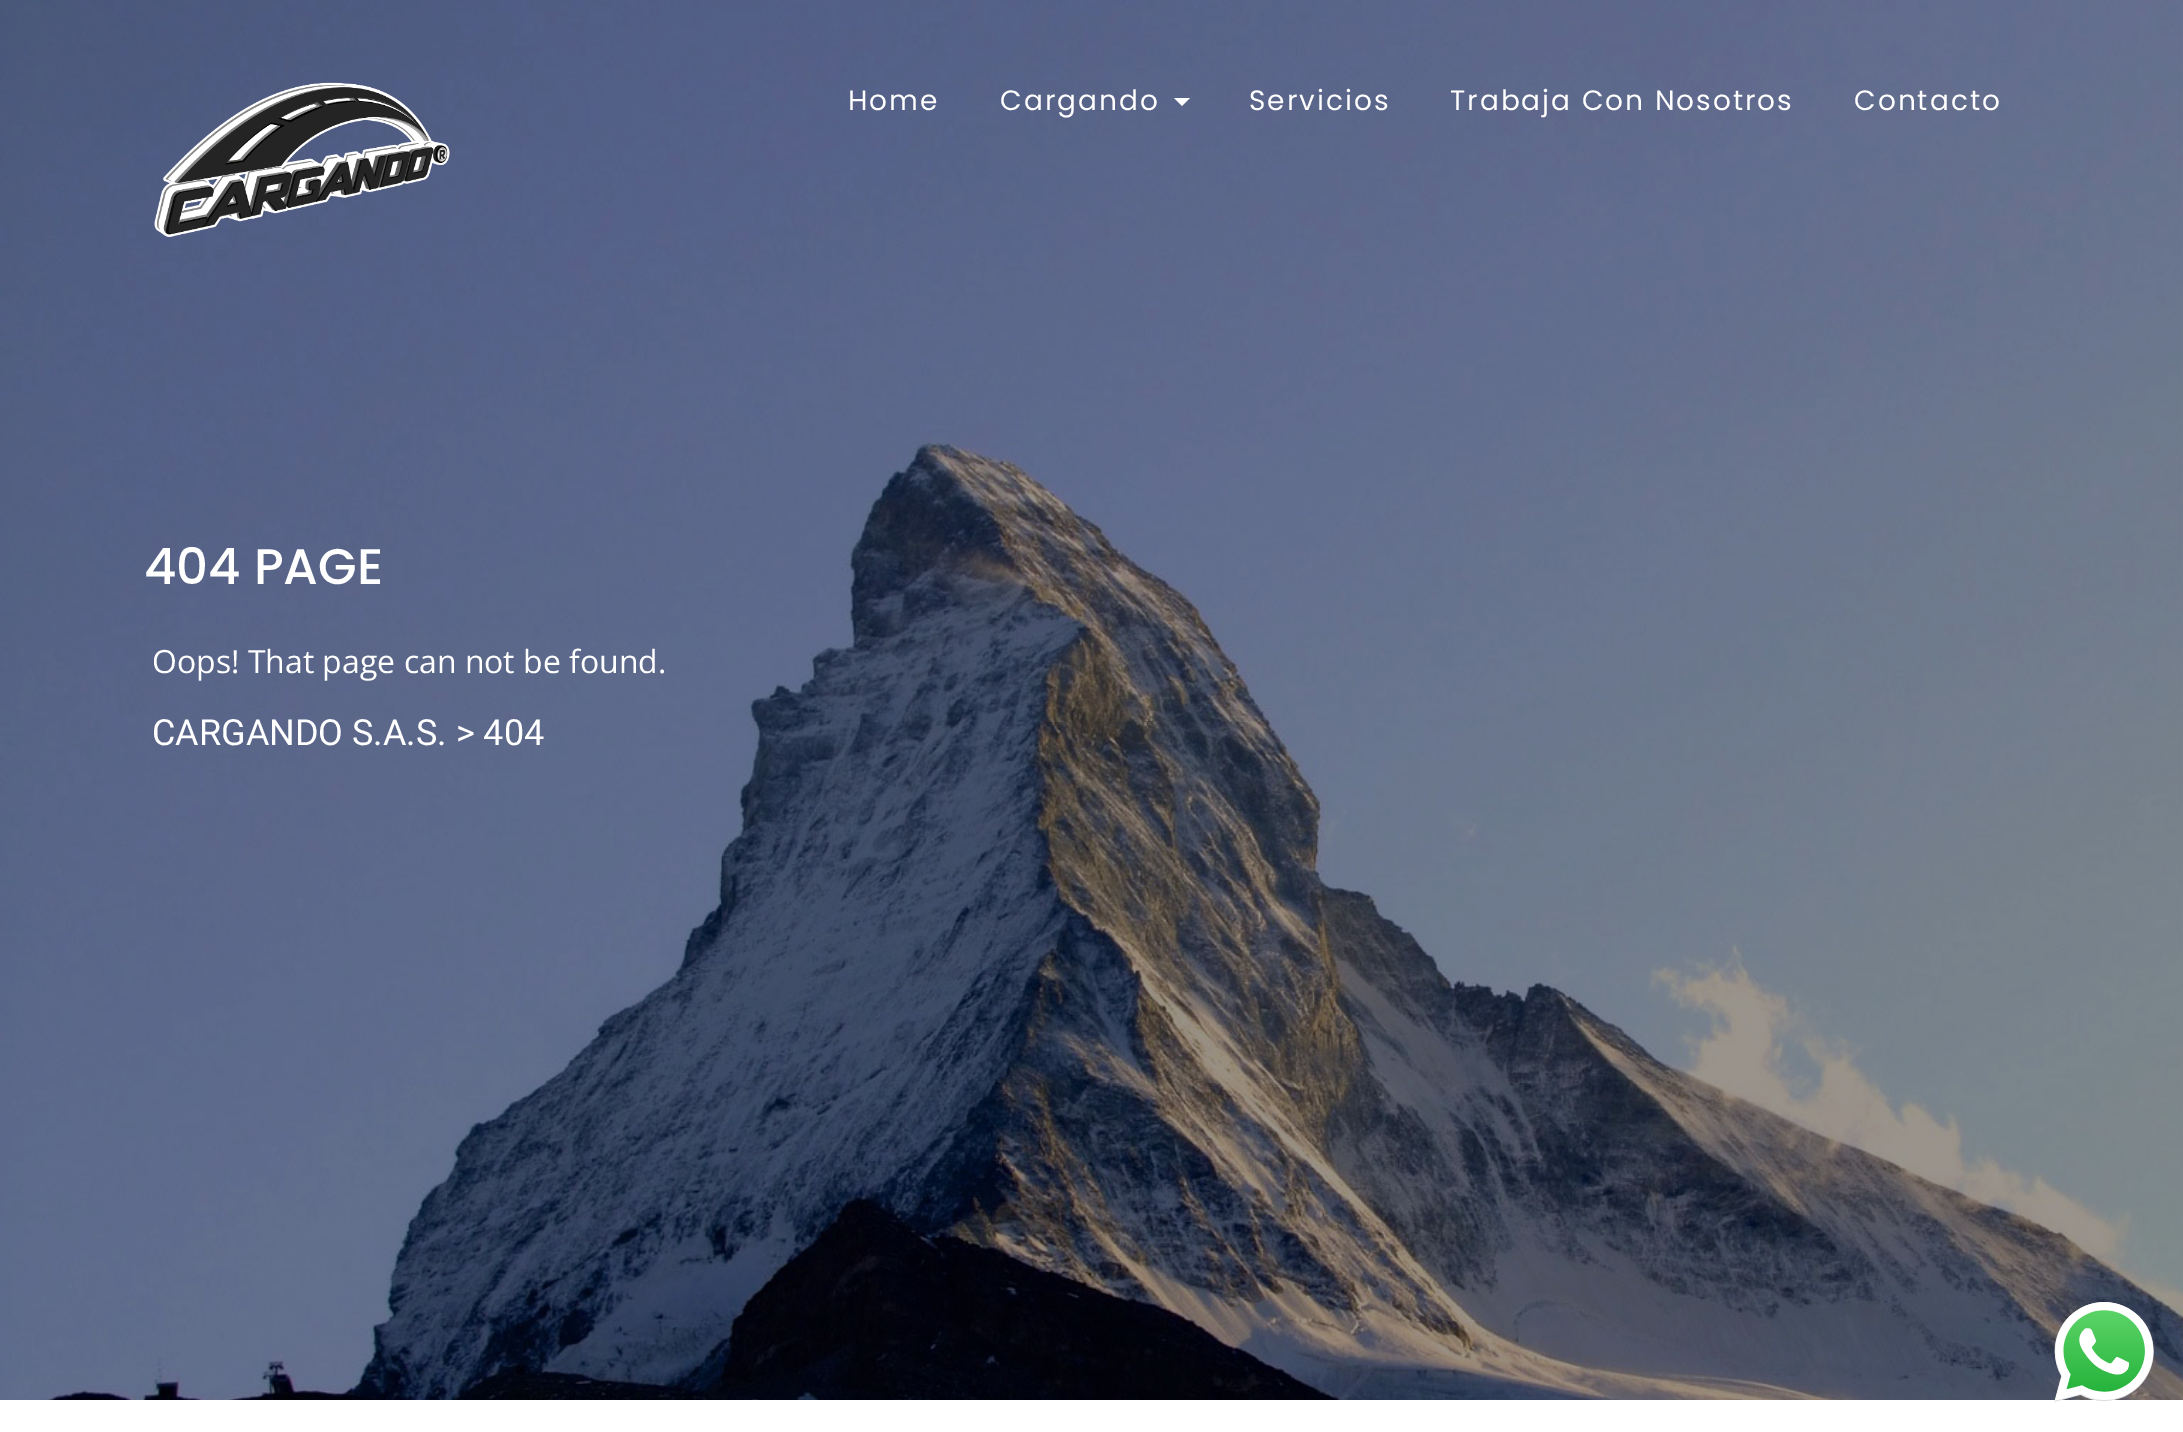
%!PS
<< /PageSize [2183 1432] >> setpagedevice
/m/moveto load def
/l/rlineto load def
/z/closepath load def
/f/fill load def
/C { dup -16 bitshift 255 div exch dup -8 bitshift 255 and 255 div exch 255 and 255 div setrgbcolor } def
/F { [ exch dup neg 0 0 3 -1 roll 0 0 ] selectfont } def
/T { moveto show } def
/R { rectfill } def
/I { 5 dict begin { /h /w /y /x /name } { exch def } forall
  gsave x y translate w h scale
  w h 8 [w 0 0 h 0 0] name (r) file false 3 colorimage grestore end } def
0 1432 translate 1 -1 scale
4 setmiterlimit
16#FFFFFF C
0 0 2183 1432 R
(2.rgb) 0 0 2183 1400 I
(1.rgb) 154 82 296 155 I
/Poppins-Regular 28 F
848 110 m 2 0 (Home) ashow
1000 110 m 2 0 (Cargando) ashow
1174 98 m 16 0 l -8 8 l z f
1249 110 m 2 0 (Servicios) ashow
1450 110 m 2 0 (Trabaja Con Nosotros) ashow
1854 110 m 2 0 (Contacto) ashow
/Poppins-Medium 50 F
(404 PAGE) 144 584 T
/OpenSans-Regular 32 F
(Oops! That page can not be found.) 152 673 T
/Roboto-Regular 36 F
(CARGANDO S.A.S. > 404) 152 745 T
(3.rgb) 2054 1302 100 100 I
showpage
